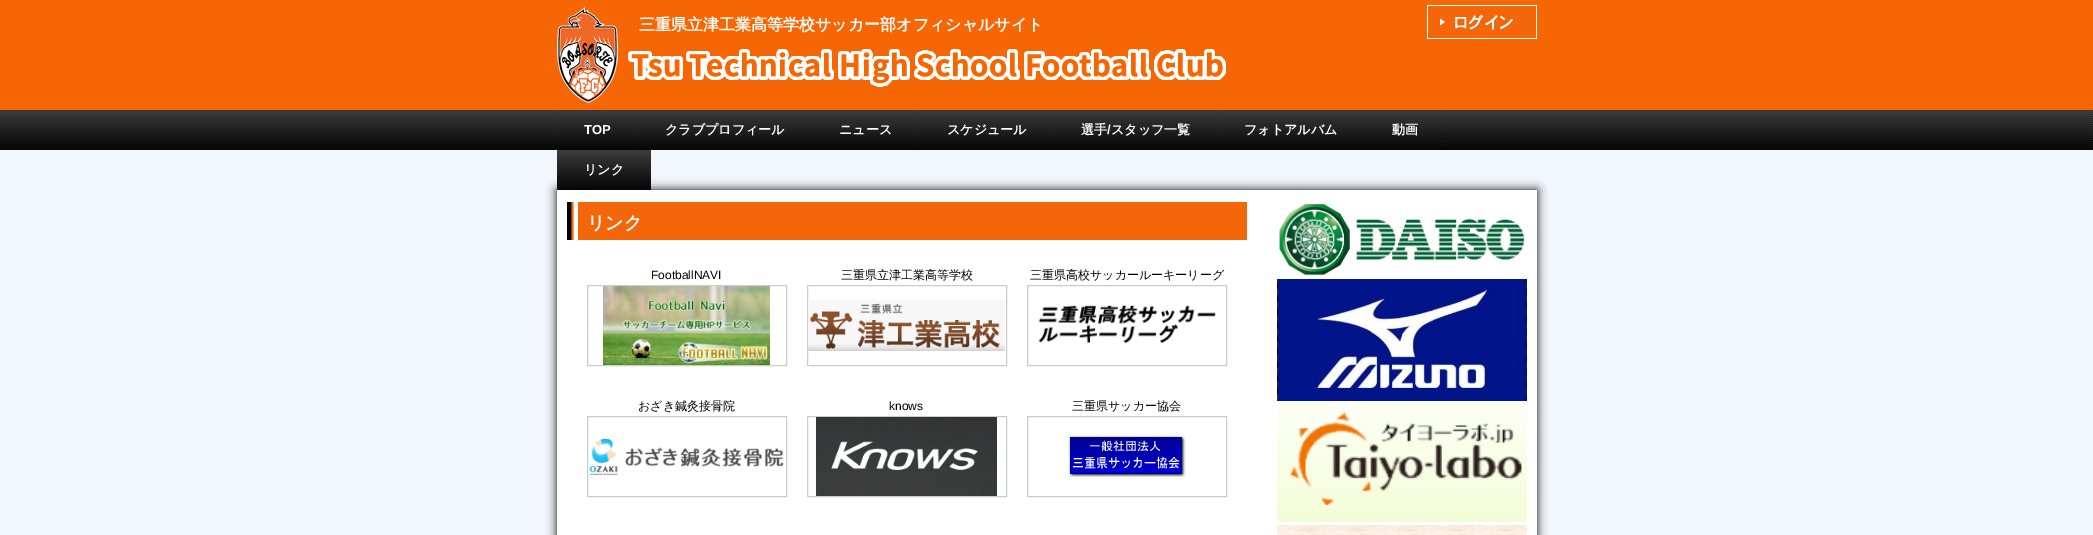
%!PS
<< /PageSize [2093 535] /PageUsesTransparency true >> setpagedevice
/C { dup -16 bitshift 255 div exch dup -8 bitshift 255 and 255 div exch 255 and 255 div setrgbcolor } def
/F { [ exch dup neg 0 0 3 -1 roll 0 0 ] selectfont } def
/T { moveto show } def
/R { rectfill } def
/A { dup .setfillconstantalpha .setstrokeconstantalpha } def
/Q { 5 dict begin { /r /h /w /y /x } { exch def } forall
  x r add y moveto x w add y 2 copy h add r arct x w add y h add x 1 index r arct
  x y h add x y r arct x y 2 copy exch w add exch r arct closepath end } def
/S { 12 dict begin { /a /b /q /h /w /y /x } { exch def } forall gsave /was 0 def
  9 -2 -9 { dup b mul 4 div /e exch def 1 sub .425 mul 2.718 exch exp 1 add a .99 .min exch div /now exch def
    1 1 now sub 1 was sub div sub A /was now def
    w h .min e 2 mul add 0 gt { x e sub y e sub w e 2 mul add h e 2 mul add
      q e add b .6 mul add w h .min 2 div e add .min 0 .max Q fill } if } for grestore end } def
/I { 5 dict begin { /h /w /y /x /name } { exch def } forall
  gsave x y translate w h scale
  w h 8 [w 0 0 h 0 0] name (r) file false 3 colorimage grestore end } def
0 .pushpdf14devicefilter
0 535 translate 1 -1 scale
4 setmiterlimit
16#F2F7FD C
0 0 2093 535 R
16#F76605 C
0 0 2093 110 R
(1.rgb) 557 7 669 96 I
/WenQuanYiZenHei-Bold 16 F
16#FFFFFF C
(三重県立津工業高等学校サッカー部オフィシャルサイト) 639 30 T
(2.rgb) 1427 5 110 34 I
(3.rgb) 0 110 2093 40 I
(4.rgb) 557 110 81 40 I
/LiberationSans-Bold 13 F
(TOP) 584 134 T
/WenQuanYiZenHei-Bold 13 F
(クラブプロフィール) 665 134 T
(ニュース) 839 134 T
(5.rgb) 919 110 135 40 I
(スケジュール) 947 134 T
(選手 スタッフ一覧) 1081 134 T
/LiberationSans-Bold 13 F
(/) 1107 134 T
(6.rgb) 1217 110 148 40 I
/WenQuanYiZenHei-Bold 13 F
(フォトアルバム) 1244 134 T
(7.rgb) 1365 110 80 40 I
(動画) 1392 134 T
16#000000 C
557 190 980 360 0 5 1 S
(8.rgb) 557 150 94 40 I
16#FFFFFF C
(リンク) 584 174 T
557 190 980 345 R
16#F3670A C
571 202 676 38 R
(9.rgb) 567 202 11 38 I
/WenQuanYiZenHei-Bold 18 F
16#FFFFFF C
(リンク) 587 229 T
/LiberationSans-Regular 12 F
16#000000 C
(FootballNAVI) 651 279 T
16#CCCCCC C
587.5 285.5 199 80 rectstroke
(10.rgb) 603 286 167 79 I
/WenQuanYiZenHei-Medium 12 F
16#000000 C
(三重県立津工業高等学校) 841 279 T
16#CCCCCC C
807.5 285.5 199 80 rectstroke
(11.rgb) 808 300 197 51 I
16#000000 C
(三重県高校サッカールーキーリーグ) 1030 279 T
16#CCCCCC C
1027.5 285.5 199 80 rectstroke
(12.rgb) 1038 305 178 39 I
16#000000 C
(おざき鍼灸接骨院) 638 410 T
16#CCCCCC C
587.5 416.5 199 80 rectstroke
(13.rgb) 589 439 195 36 I
/LiberationSans-Regular 12 F
16#000000 C
(knows) 889 410 T
16#CCCCCC C
807.5 416.5 199 80 rectstroke
(14.rgb) 816 417 181 79 I
/WenQuanYiZenHei-Medium 12 F
16#000000 C
(三重県サッカー協会) 1072 410 T
16#CCCCCC C
1027.5 416.5 199 80 rectstroke
(15.rgb) 1068 435 118 43 I
(16.rgb) 1279 204 246 72 I
(17.rgb) 1277 279 250 122 I
(18.rgb) 1277 404 250 118 I
(19.rgb) 1277 525 250 10 I
.poppdf14devicefilter showpage
